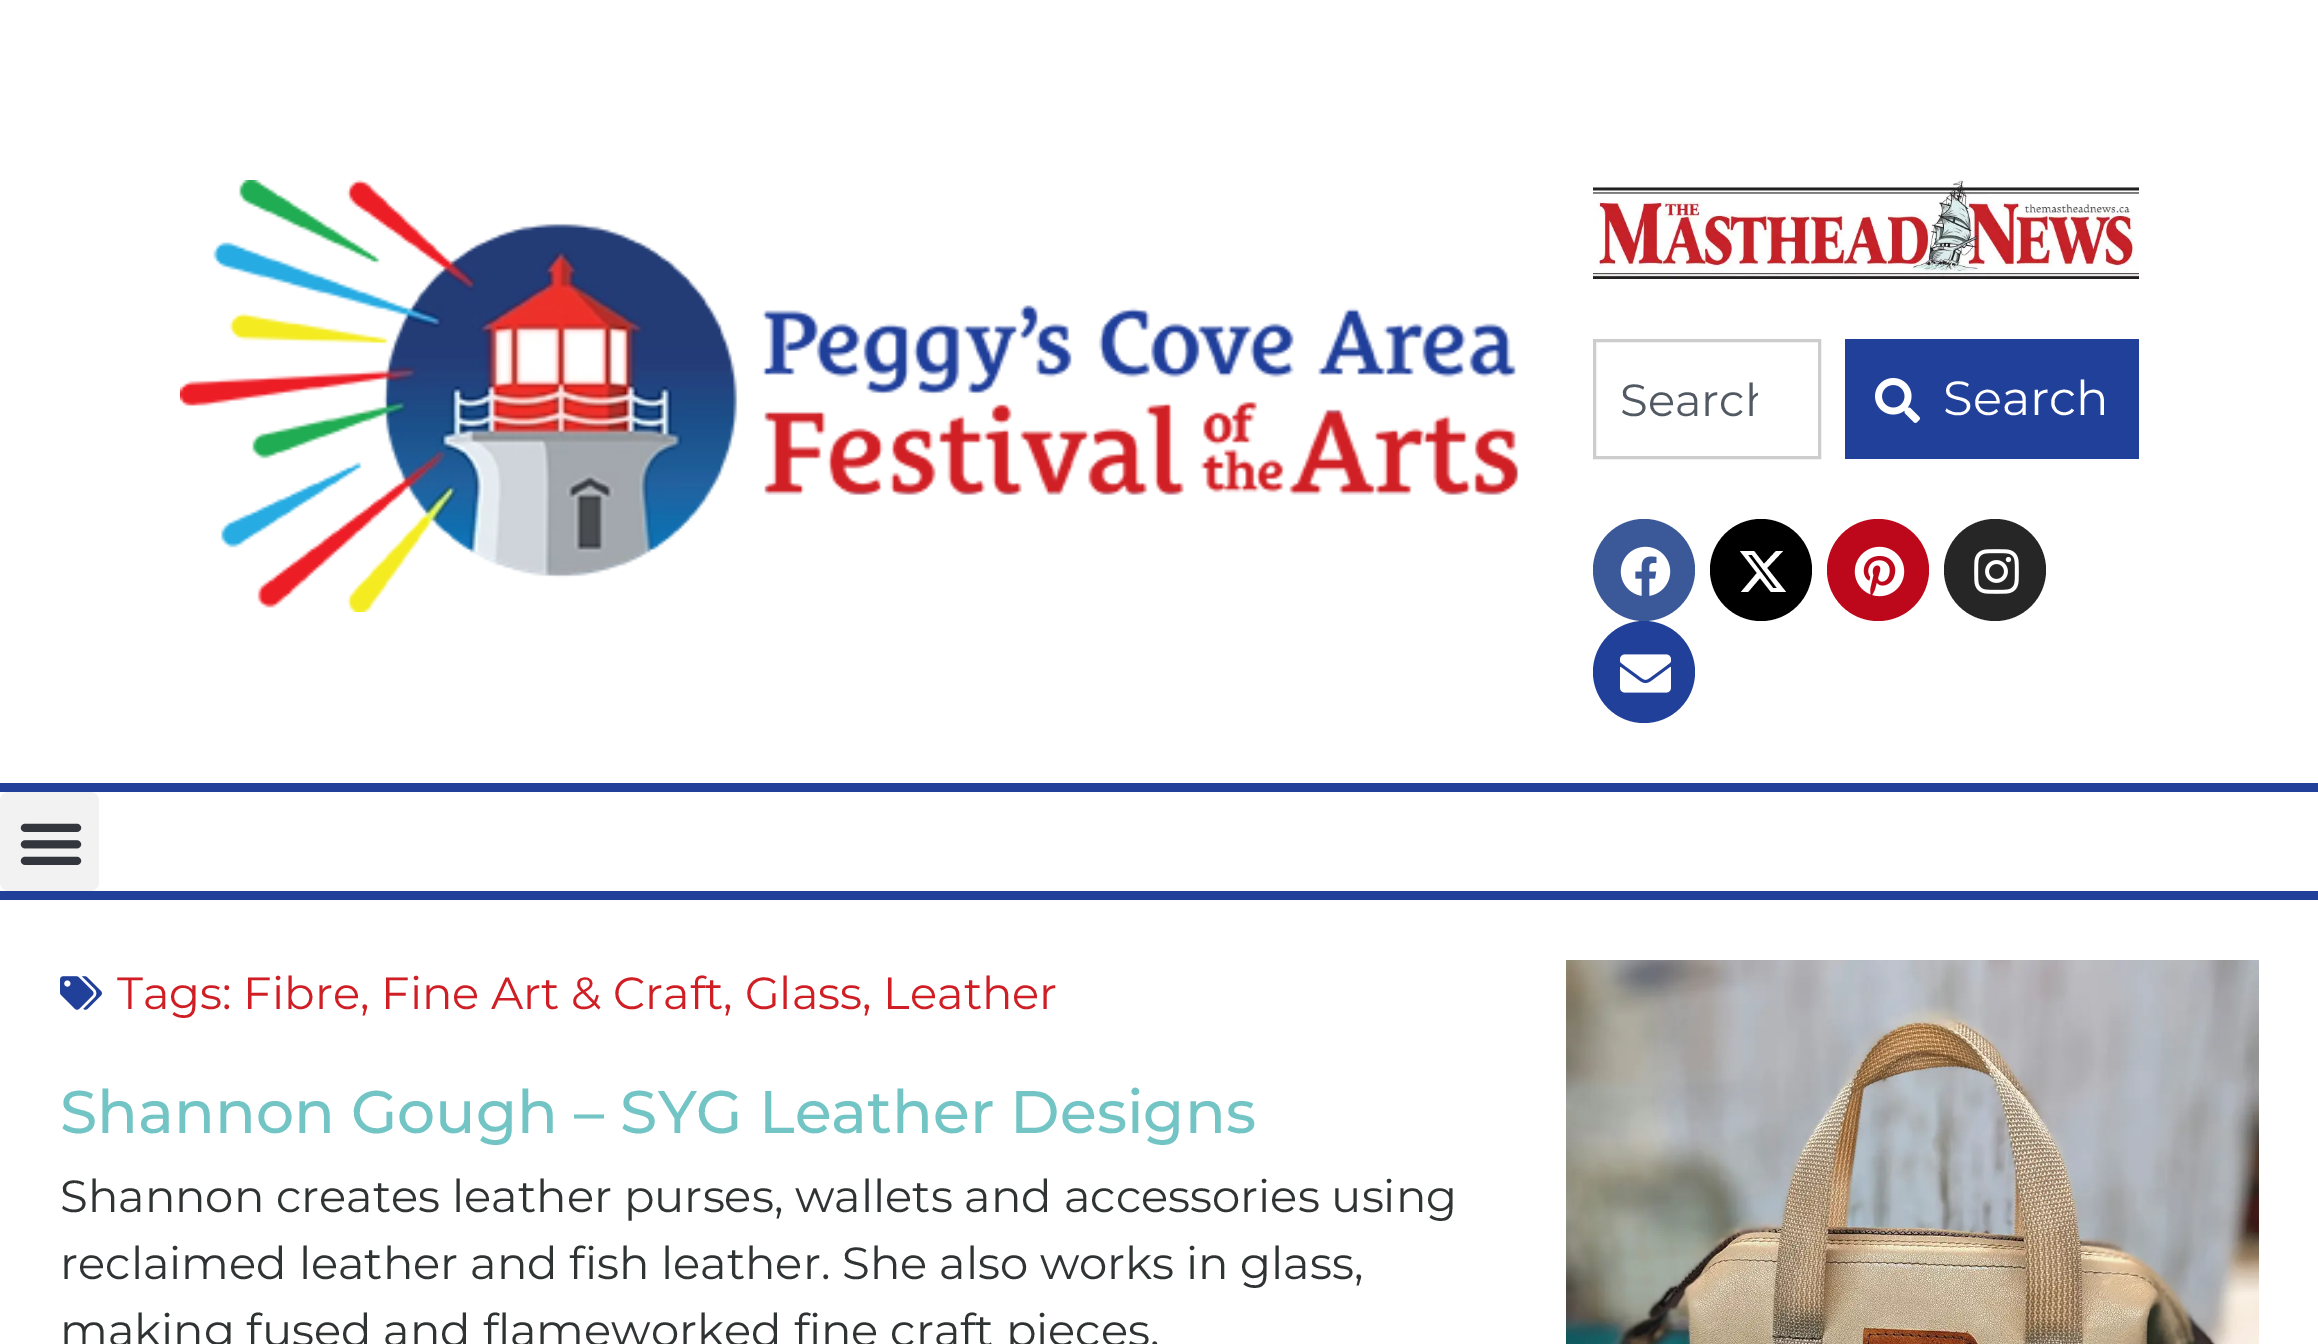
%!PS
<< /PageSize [2318 1344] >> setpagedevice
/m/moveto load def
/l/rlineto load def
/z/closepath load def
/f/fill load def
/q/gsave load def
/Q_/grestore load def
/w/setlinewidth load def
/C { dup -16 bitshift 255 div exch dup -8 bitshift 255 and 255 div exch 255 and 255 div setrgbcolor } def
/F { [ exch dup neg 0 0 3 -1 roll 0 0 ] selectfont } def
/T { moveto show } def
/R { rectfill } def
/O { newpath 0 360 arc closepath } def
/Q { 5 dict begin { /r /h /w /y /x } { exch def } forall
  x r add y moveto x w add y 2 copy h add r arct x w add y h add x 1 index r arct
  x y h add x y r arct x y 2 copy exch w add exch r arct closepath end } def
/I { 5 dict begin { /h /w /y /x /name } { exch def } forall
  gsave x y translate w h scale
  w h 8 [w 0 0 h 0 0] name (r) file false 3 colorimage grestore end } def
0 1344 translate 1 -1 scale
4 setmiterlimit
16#FFFFFF C
0 0 2318 1344 R
(1.rgb) 180 180 1339 432 I
(2.rgb) 1593 180 546 99 I
16#CDCDCD C
3 w
1594.5 340.5 225 117 rectstroke
q
1620 372 138 57 rectclip
/Montserrat-Regular 45 F
16#515962 C
(Search) 1620 416 T
Q_
16#21409A C
1845 339 294 120 R
(3.rgb) 1875 378 45 45 I
/Montserrat-Regular 48 F
16#FFFFFF C
(Search) 1943 415 T
16#3B5998 C
1644 570 51 O f
(4.rgb) 1620 546 51 50 I
16#000000 C
1761 570 51 O f
16#FFFFFF C
1776 551 m 7 0 l -16 17 l 19 24 l -15 0 l -11 -14 l -12 14 l -7 0 l 16 -19 l -17 -22 l 14 0 l 10 13 l z 1773 588 m 4 0 l -25 -33 l -4 0 l z f
16#BD081C C
1878 570 51 O f
(5.rgb) 1854 546 51 51 I
16#262626 C
1995 570 51 O f
(6.rgb) 1974 549 45 45 I
16#21409A C
1644 672 51 O f
(7.rgb) 1620 654 51 39 I
0 783 2318 9 R
0 891 2318 9 R
16#F2F2F2 C
0 792 99 99 9 Q f
(8.rgb) 20 823 62 42 I
(9.rgb) 60 976 42 34 I
/Montserrat-Regular 45 F
16#CF1F25 C
(Tags: Fibre, Fine Art & Craft, Glass, Leather) 117 1009 T
/Montserrat-Medium 60 F
16#72C5C4 C
(Shannon Gough – SYG Leather Designs) 60 1133 T
/Montserrat-Regular 45 F
16#2F3333 C
(Shannon creates leather purses, wallets and accessories using) 60 1212 T
(reclaimed leather and fish leather. She also works in glass,) 60 1279 T
(making fused and flameworked fine craft pieces.) 60 1346 T
(10.rgb) 1566 960 693 384 I
showpage
